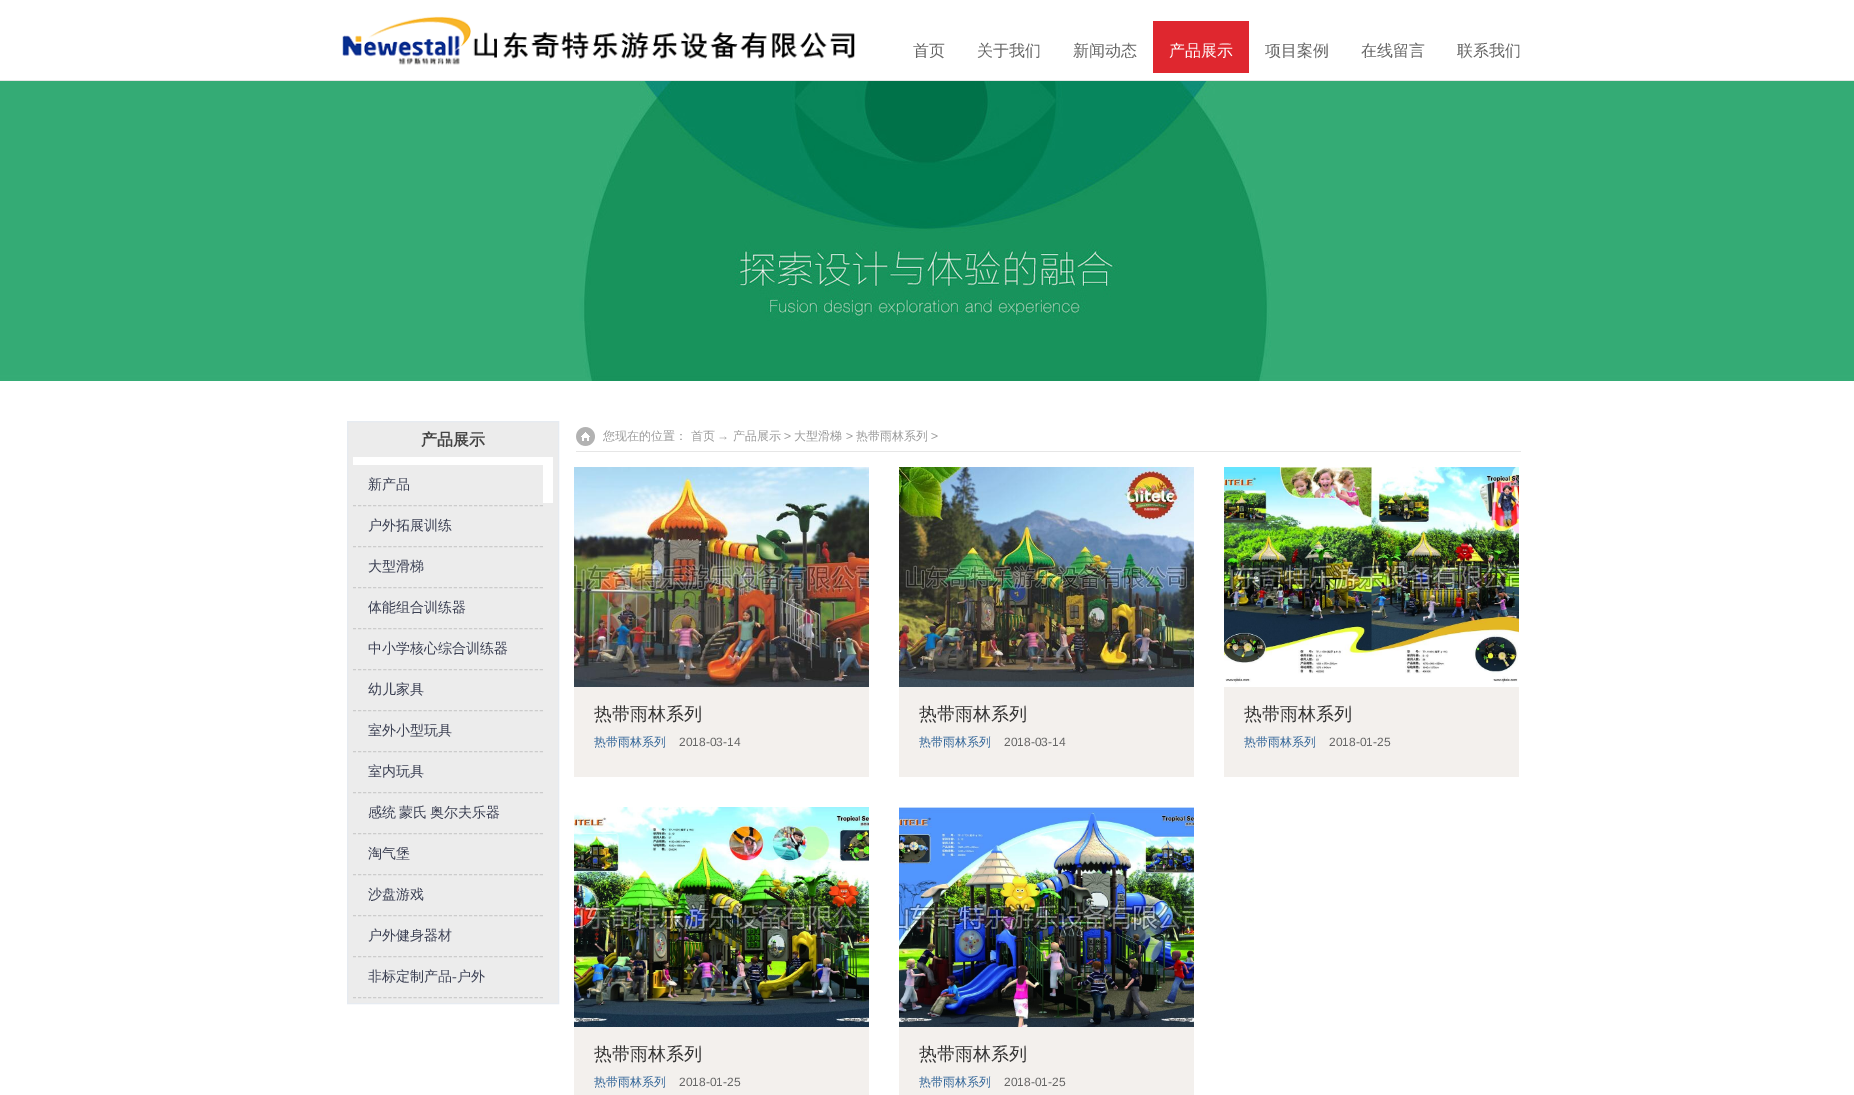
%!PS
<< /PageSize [1854 1095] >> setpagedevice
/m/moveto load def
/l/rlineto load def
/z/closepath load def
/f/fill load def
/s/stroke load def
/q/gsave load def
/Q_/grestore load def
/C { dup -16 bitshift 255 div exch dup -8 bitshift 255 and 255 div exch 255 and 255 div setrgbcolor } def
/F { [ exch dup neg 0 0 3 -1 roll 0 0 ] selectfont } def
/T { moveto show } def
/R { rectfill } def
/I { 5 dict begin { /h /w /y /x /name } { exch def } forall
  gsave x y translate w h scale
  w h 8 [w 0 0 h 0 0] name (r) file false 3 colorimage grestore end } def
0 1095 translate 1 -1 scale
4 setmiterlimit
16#FFFFFF C
0 0 1854 1095 R
16#E6E6E6 C
0 80 1854 1 R
(1.rgb) 342 16 513 49 I
/WenQuanYiZenHei-Medium 16 F
16#666666 C
(首页) 913 56 T
(关于我们) 977 56 T
(新闻动态) 1073 56 T
16#DF272F C
1153 21 96 52 R
16#FFFFFF C
(产品展示) 1169 56 T
16#666666 C
(项目案例) 1265 56 T
(在线留言) 1361 56 T
(联系我们) 1457 56 T
(2.rgb) 0 81 1854 300 I
16#ECECEC C
347.5 421.5 m 211 0 l 0 582 l -211 0 l z q f Q_
16#E6EBF1 C
s
/WenQuanYiZenHei-Bold 16 F
16#444444 C
(产品展示) 421 445 T
16#FFFFFF C
353 457 200 46 R
16#ECECEC C
353 465 190 38 R
16#CCCCCC C
[3 2.05] 0 setdash
353 505.5 m 190 0 l s
/WenQuanYiZenHei-Medium 14 F
16#3B4053 C
(新产品) 368 489 T
16#CCCCCC C
353 546.5 m 190 0 l s
16#3B4053 C
(户外拓展训练) 368 530 T
16#CCCCCC C
353 587.5 m 190 0 l s
16#3B4053 C
(大型滑梯) 368 571 T
16#CCCCCC C
353 628.5 m 190 0 l s
16#3B4053 C
(体能组合训练器) 368 612 T
16#CCCCCC C
353 669.5 m 190 0 l s
16#3B4053 C
(中小学核心综合训练器) 368 653 T
16#CCCCCC C
353 710.5 m 190 0 l s
16#3B4053 C
(幼儿家具) 368 694 T
16#CCCCCC C
353 751.5 m 190 0 l s
16#3B4053 C
(室外小型玩具) 368 735 T
16#CCCCCC C
353 792.5 m 190 0 l s
16#3B4053 C
(室内玩具) 368 776 T
16#CCCCCC C
353 833.5 m 190 0 l s
16#3B4053 C
368 817 m -1 0 32 (感统 蒙氏 奥尔夫乐器) widthshow
16#CCCCCC C
353 874.5 m 190 0 l s
16#3B4053 C
(淘气堡) 368 858 T
16#CCCCCC C
353 915.5 m 190 0 l s
16#3B4053 C
(沙盘游戏) 368 899 T
16#CCCCCC C
353 956.5 m 190 0 l s
16#3B4053 C
(户外健身器材) 368 940 T
16#CCCCCC C
353 997.5 m 190 0 l s
16#3B4053 C
(非标定制产品) 368 981 T
/LiberationSerif-Regular 14 F
(-) 452 981 T
/WenQuanYiZenHei-Medium 14 F
(户外) 457 981 T
16#E6E6E6 C
576 451 945 1 R
(3.rgb) 576 427 19 19 I
/WenQuanYiZenHei-Medium 12 F
16#999999 C
(您现在的位置： 首页) 603 440 T
/LiberationSans-Regular 12 F
(→) 717 440 T
/WenQuanYiZenHei-Medium 12 F
(产品展示) 733 440 T
/LiberationSans-Regular 12 F
(>) 784 440 T
/WenQuanYiZenHei-Medium 12 F
(大型滑梯) 794 440 T
/LiberationSans-Regular 12 F
(>) 846 440 T
/WenQuanYiZenHei-Medium 12 F
(热带雨林系列) 856 440 T
/LiberationSans-Regular 12 F
(>) 931 440 T
16#F3F0ED C
574 687 295 90 R
(4.rgb) 574 467 295 220 I
/WenQuanYiZenHei-Medium 18 F
16#333333 C
(热带雨林系列) 594 720 T
/WenQuanYiZenHei-Medium 12 F
16#336699 C
(热带雨林系列) 594 746 T
/LiberationSans-Regular 12 F
16#666666 C
(2018-03-14) 679 746 T
16#F3F0ED C
899 687 295 90 R
(5.rgb) 899 467 295 220 I
/WenQuanYiZenHei-Medium 18 F
16#333333 C
(热带雨林系列) 919 720 T
/WenQuanYiZenHei-Medium 12 F
16#336699 C
(热带雨林系列) 919 746 T
/LiberationSans-Regular 12 F
16#666666 C
(2018-03-14) 1004 746 T
16#F3F0ED C
1224 687 295 90 R
(6.rgb) 1224 467 295 220 I
/WenQuanYiZenHei-Medium 18 F
16#333333 C
(热带雨林系列) 1244 720 T
/WenQuanYiZenHei-Medium 12 F
16#336699 C
(热带雨林系列) 1244 746 T
/LiberationSans-Regular 12 F
16#666666 C
(2018-01-25) 1329 746 T
16#F3F0ED C
574 1027 295 68 R
(7.rgb) 574 807 295 220 I
/WenQuanYiZenHei-Medium 18 F
16#333333 C
(热带雨林系列) 594 1060 T
/WenQuanYiZenHei-Medium 12 F
16#336699 C
(热带雨林系列) 594 1086 T
/LiberationSans-Regular 12 F
16#666666 C
(2018-01-25) 679 1086 T
16#F3F0ED C
899 1027 295 68 R
(8.rgb) 899 807 295 220 I
/WenQuanYiZenHei-Medium 18 F
16#333333 C
(热带雨林系列) 919 1060 T
/WenQuanYiZenHei-Medium 12 F
16#336699 C
(热带雨林系列) 919 1086 T
/LiberationSans-Regular 12 F
16#666666 C
(2018-01-25) 1004 1086 T
showpage
